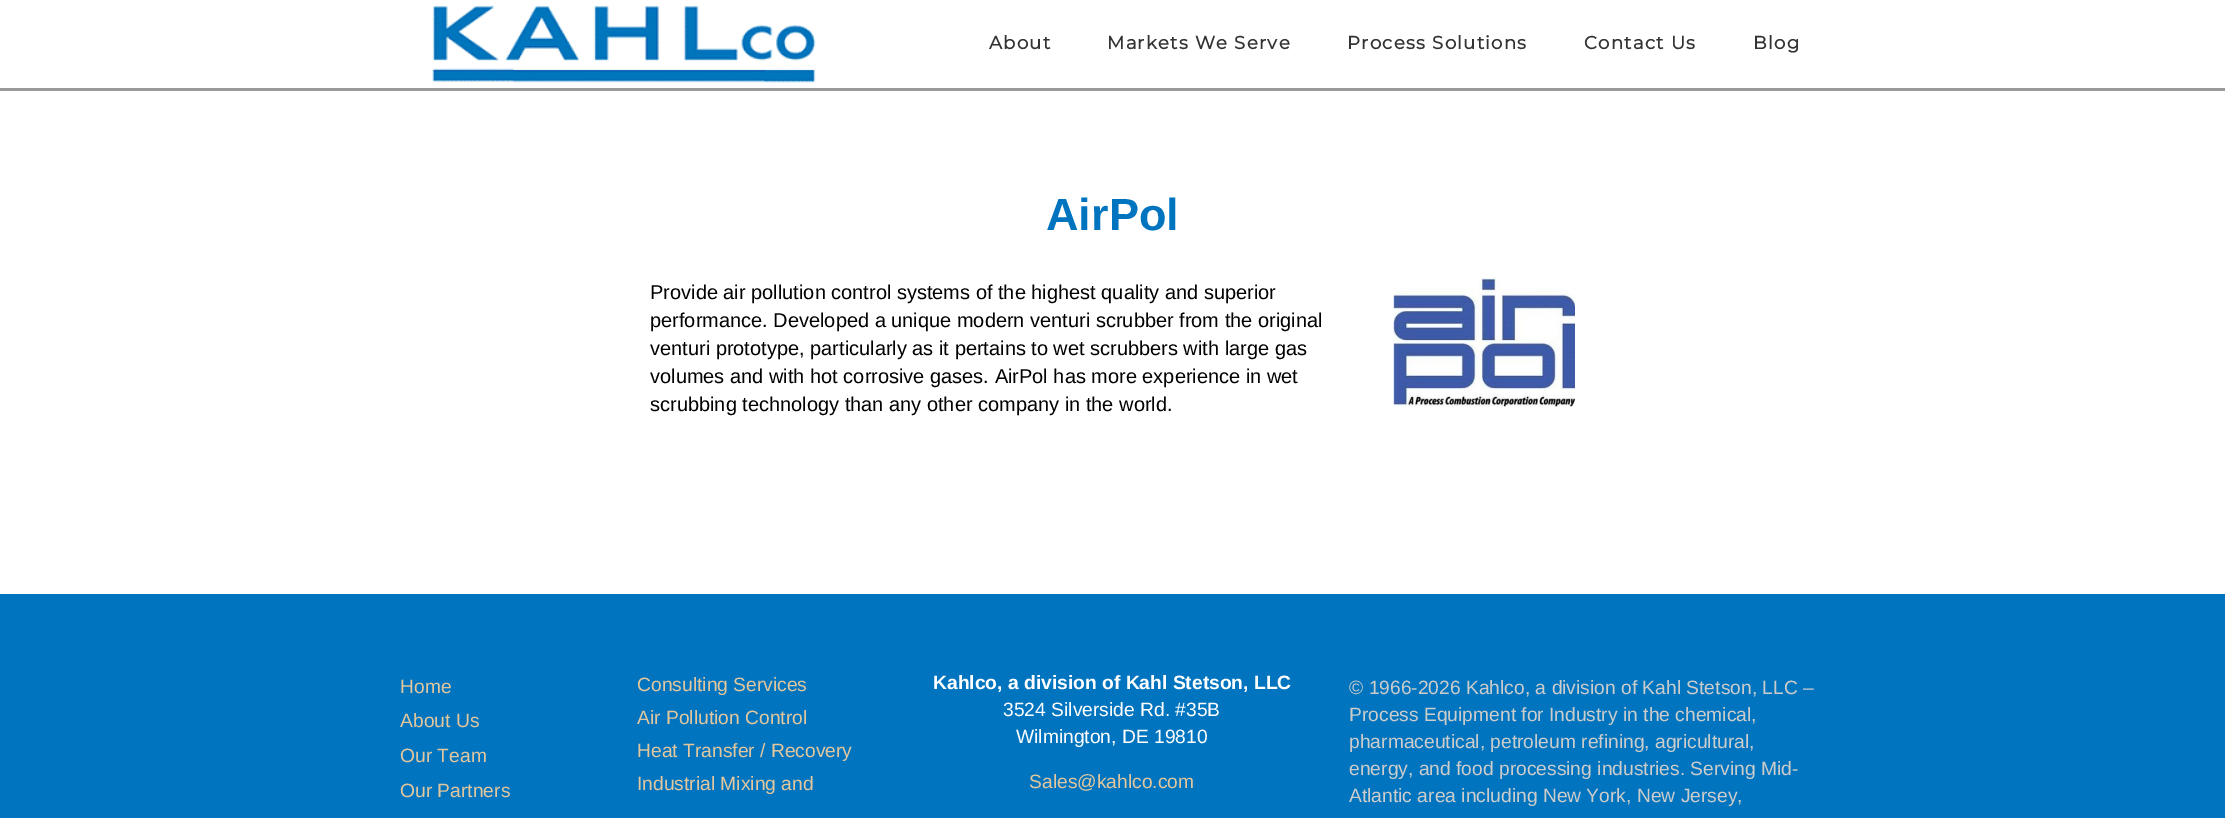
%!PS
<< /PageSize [2225 818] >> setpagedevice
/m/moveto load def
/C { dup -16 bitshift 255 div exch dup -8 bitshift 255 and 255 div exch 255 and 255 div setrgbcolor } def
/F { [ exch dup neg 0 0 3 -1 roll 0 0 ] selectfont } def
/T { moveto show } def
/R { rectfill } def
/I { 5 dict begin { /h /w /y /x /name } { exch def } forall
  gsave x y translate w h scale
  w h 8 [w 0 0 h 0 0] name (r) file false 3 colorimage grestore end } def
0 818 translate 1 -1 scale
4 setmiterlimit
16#FFFFFF C
0 0 2225 818 R
16#999999 C
0 88 2225 3 R
(1.rgb) 431 5 386 78 I
/Montserrat-Bold 18.1 F
16#333333 C
989 49 m 1.25 0 (About) ashow
1107 49 m 1.25 0 (Markets We Serve) ashow
1347 49 m 1.25 0 (Process Solutions) ashow
1584 49 m 1.25 0 (Contact Us) ashow
1753 49 m 1.25 0 (Blog) ashow
/LiberationSans-Bold 45 F
16#0074BE C
(AirPol) 1046 230 T
/LiberationSans-Regular 20 F
16#000000 C
(Provide air pollution control systems of the highest quality and superior) 650 299 T
(2.rgb) 1393 278 182 129 I
(performance. Developed a unique modern venturi scrubber from the original) 650 327 T
(venturi prototype, particularly as it pertains to wet scrubbers with large gas) 650 355 T
(volumes and with hot corrosive gases. AirPol has more experience in wet) 650 383 T
(scrubbing technology than any other company in the world.) 650 411 T
16#0074BE C
0 594 2225 224 R
/LiberationSans-Regular 19.25 F
16#E2C79E C
(Home) 400 693 T
(About Us) 400 727 T
(Our Team) 400 762 T
(Our Partners) 400 797 T
(Consulting Services) 637 691 T
(Air Pollution Control) 637 724 T
(Heat Transfer / Recovery) 637 757 T
(Industrial Mixing and) 637 790 T
/LiberationSans-Bold 19.25 F
16#FFFFFF C
(Kahlco, a division of Kahl Stetson, LLC) 933 689 T
/LiberationSans-Regular 19.25 F
(3524 Silverside Rd. #35B) 1003 716 T
(Wilmington, DE 19810) 1016 743 T
16#E2C79E C
(Sales@kahlco.com) 1029 788 T
16#CCCCCC C
(© 1966-2026 Kahlco, a division of Kahl Stetson, LLC –) 1349 694 T
(Process Equipment for Industry in the chemical,) 1349 721 T
(pharmaceutical, petroleum refining, agricultural,) 1349 748 T
(energy, and food processing industries. Serving Mid-) 1349 775 T
(Atlantic area including New York, New Jersey,) 1349 802 T
showpage
